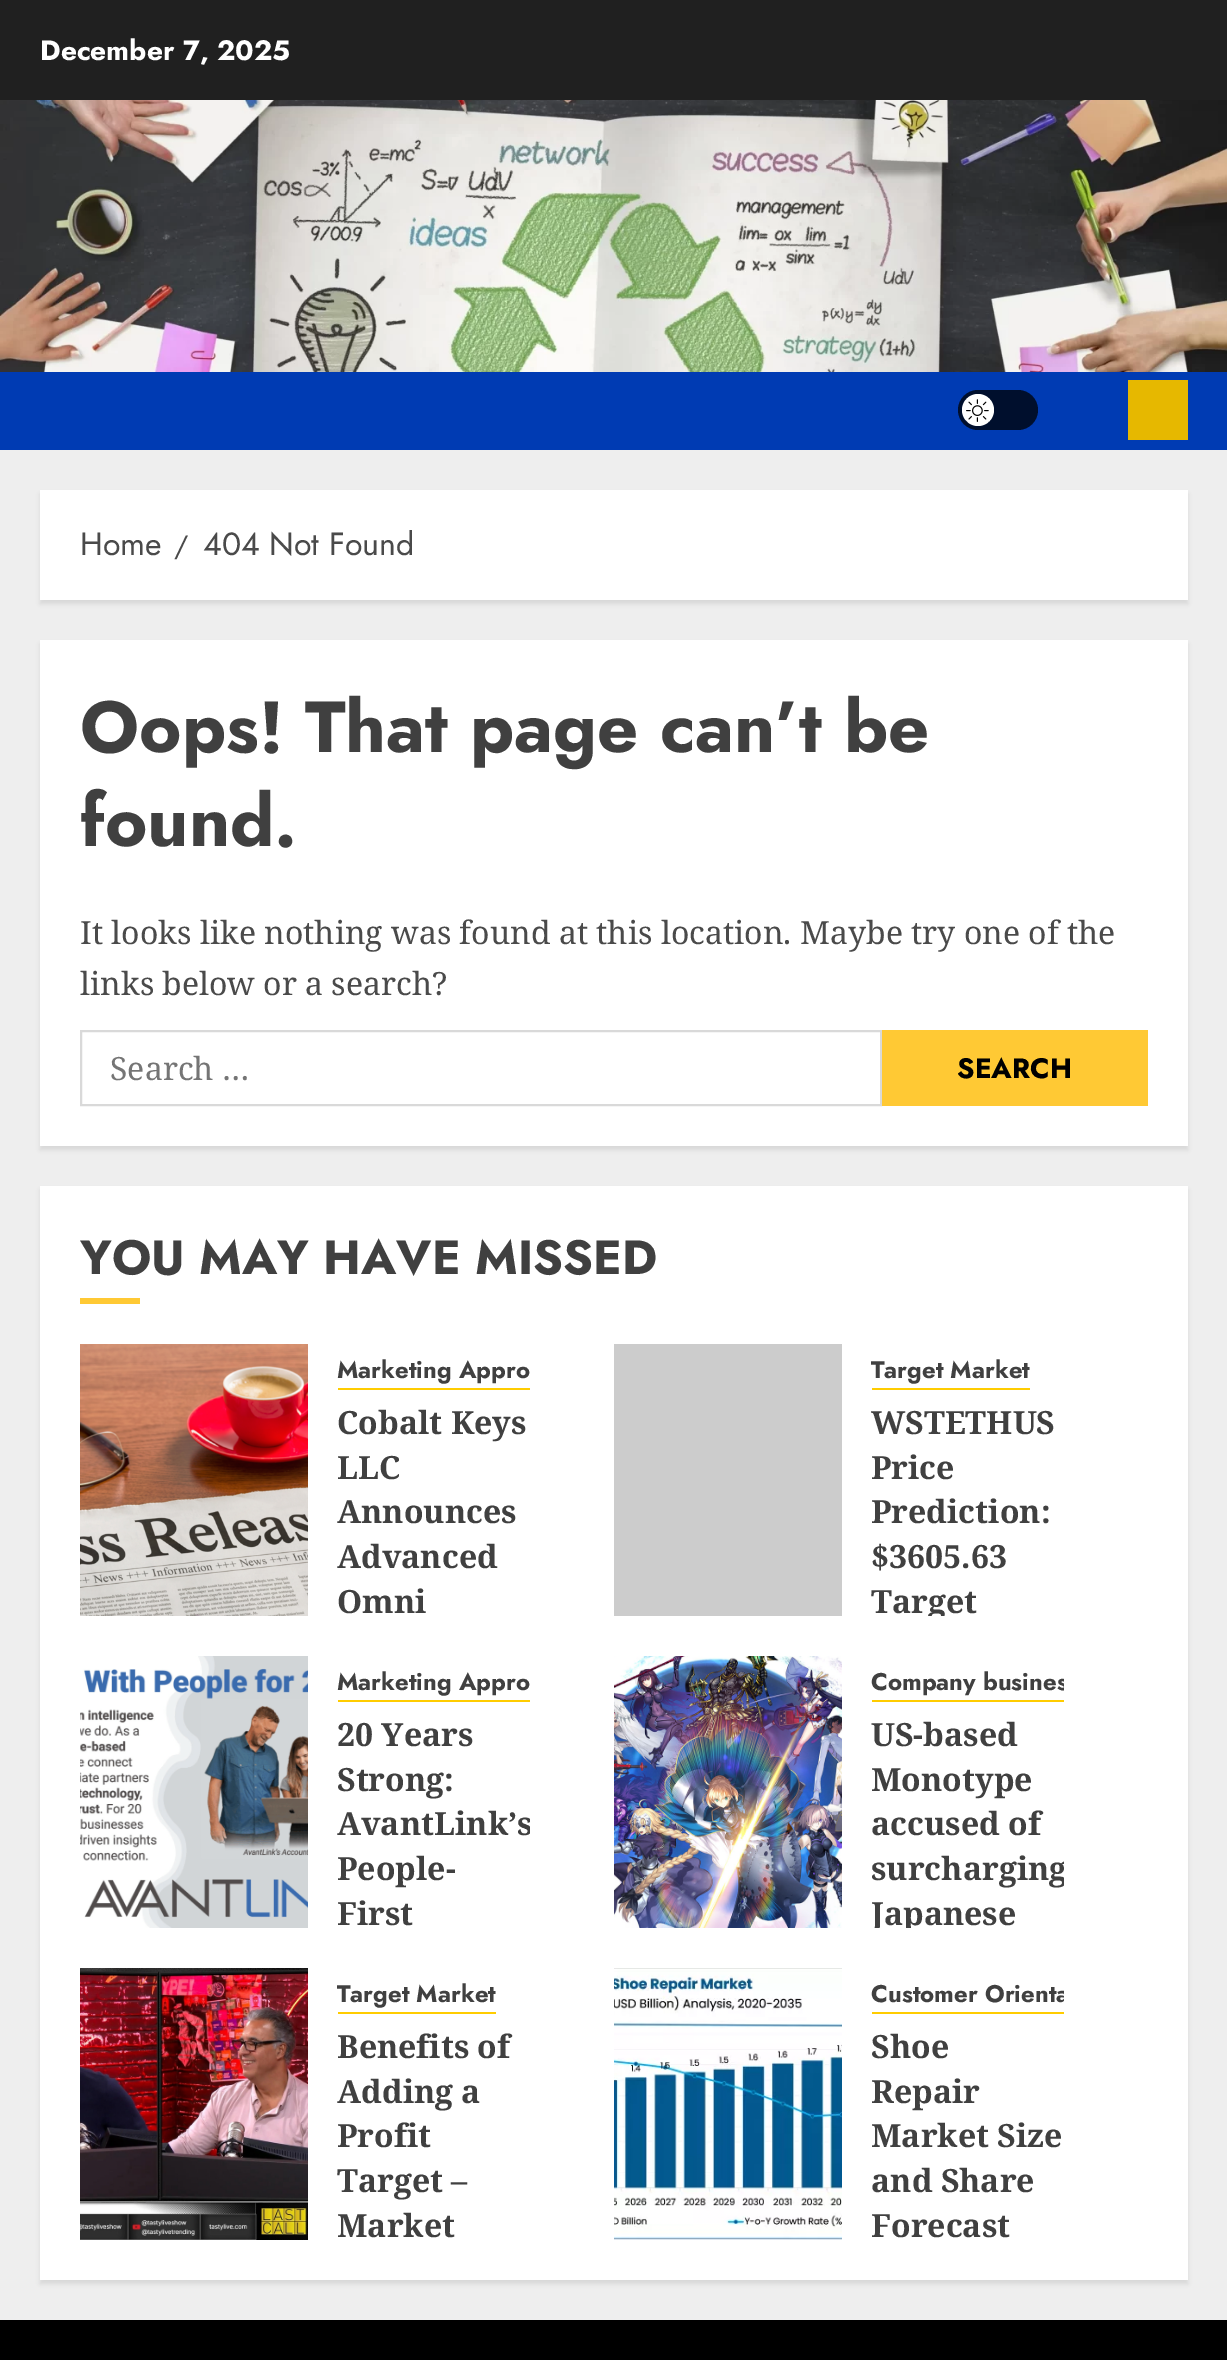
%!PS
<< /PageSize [1227 2360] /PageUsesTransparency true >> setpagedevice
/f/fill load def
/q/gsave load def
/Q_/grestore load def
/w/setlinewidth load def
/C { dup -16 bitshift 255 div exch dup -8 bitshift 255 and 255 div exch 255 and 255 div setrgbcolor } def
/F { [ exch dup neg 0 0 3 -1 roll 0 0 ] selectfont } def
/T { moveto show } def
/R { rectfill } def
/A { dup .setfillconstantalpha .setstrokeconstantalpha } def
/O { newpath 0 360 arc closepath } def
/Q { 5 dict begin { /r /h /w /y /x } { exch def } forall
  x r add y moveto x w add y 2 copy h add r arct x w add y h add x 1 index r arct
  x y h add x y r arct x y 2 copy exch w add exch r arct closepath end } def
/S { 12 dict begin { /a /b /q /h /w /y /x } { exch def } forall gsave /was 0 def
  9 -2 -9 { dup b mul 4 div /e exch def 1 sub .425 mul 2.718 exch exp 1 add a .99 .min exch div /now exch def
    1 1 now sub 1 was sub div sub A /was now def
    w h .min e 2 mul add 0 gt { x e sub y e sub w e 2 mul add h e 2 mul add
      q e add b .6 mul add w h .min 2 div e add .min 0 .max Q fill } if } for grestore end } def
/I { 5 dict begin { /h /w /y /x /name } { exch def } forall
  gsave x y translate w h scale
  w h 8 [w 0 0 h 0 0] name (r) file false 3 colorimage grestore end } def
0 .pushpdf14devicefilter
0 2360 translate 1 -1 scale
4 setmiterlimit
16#EEEEEE C
0 0 1227 2360 R
16#202020 C
0 0 1227 100 R
/Jost-Bold 28 F
16#FFFFFF C
(December 7, 2025) 40 60 T
(1.rgb) 0 100 1227 272 I
16#003BB3 C
0 372 1227 78 R
16#000F2D C
958 390 80 40 20 Q f
16#FFFFFF C
978 410 16 O f
(2.rgb) 966 399 23 23 I
16#E6B800 C
1128 380 60 60 R
16#000000 C
40 494 1148 110 0 2 .08 S
16#FFFFFF C
40 490 1148 110 R
/Jost-Regular 32 F
16#4A4A4A C
(Home) 80 555 T
/Jost-Regular 28 F
(/) 174 555 T
/Jost-Regular 32 F
(404 Not Found) 203 555 T
16#000000 C
40 644 1148 506 0 2 .08 S
16#FFFFFF C
40 640 1148 506 R
/Jost-Bold 72 F
16#404040 C
(Oops! That page can’t be) 80 752 T
(found.) 80 846 T
/NotoSerif-Regular 32 F
16#4A4A4A C
(It looks like nothing was found at this location. Maybe try one of the) 80 944 T
(links below or a search?) 80 995 T
16#D9D9D9 C
2 w
81 1031 800 74 rectstroke
16#757575 C
(Search …) 110 1080 T
16#FFC934 C
882 1030 266 76 R
/Jost-Bold 28 F
16#000000 C
(SEARCH) 957 1078 T
40 1190 1148 1094 0 2 .08 S
16#FFFFFF C
40 1186 1148 1094 R
/Jost-Bold 48 F
16#404040 C
(YOU MAY HAVE MISSED) 80 1274 T
16#FFC934 C
80 1298 60 6 R
(3.rgb) 80 1344 228 272 I
16#FFCC00 C
338 1388 192 2 R
/Jost-Bold 24 F
16#404040 C
(Marketing Appro) 337 1378 T
/NotoSerif-Bold 32 F
(Cobalt Keys) 337 1434 T
(LLC) 337 1479 T
(Announces) 337 1523 T
(Advanced) 337 1568 T
(Omni) 337 1613 T
16#CCCCCC C
614 1344 228 272 R
16#FFCC00 C
872 1388 158 2 R
/Jost-Bold 24 F
16#404040 C
(Target Market) 871 1378 T
/NotoSerif-Bold 32 F
(WSTETHUS) 871 1434 T
(Price) 871 1479 T
(Prediction:) 871 1523 T
($3605.63) 871 1568 T
q
842 1344 222 272 rectclip
(Target) 871 1613 T
Q_
(4.rgb) 80 1656 228 272 I
16#FFCC00 C
338 1700 192 2 R
/Jost-Bold 24 F
16#404040 C
(Marketing Appro) 337 1690 T
/NotoSerif-Bold 32 F
(20 Years) 337 1746 T
(Strong:) 337 1791 T
q
308 1656 222 272 rectclip
(AvantLink’s) 337 1835 T
Q_
(People-) 337 1880 T
(First) 337 1925 T
(5.rgb) 614 1656 228 272 I
16#FFCC00 C
872 1700 192 2 R
q
842 1656 222 272 rectclip
/Jost-Bold 24 F
16#404040 C
(Company busines) 871 1690 T
Q_
16#404040 C
(US-based) 871 1746 T
(Monotype) 871 1791 T
(accused of) 871 1835 T
q
842 1656 222 272 rectclip
(surcharging) 871 1880 T
(Japanese) 871 1925 T
Q_
(6.rgb) 80 1968 228 272 I
16#FFCC00 C
338 2012 158 2 R
/Jost-Bold 24 F
16#404040 C
(Target Market) 337 2002 T
/NotoSerif-Bold 32 F
(Benefits of) 337 2058 T
(Adding a) 337 2103 T
(Profit) 337 2147 T
(Target –) 337 2192 T
(Market) 337 2237 T
(7.rgb) 614 1968 228 272 I
16#FFCC00 C
872 2012 192 2 R
q
842 1968 222 272 rectclip
/Jost-Bold 24 F
16#404040 C
(Customer Orienta) 871 2002 T
Q_
16#404040 C
(Shoe) 871 2058 T
(Repair) 871 2103 T
(Market Size) 871 2147 T
(and Share) 871 2192 T
(Forecast) 871 2237 T
16#000000 C
0 2320 1227 40 R
.poppdf14devicefilter showpage
